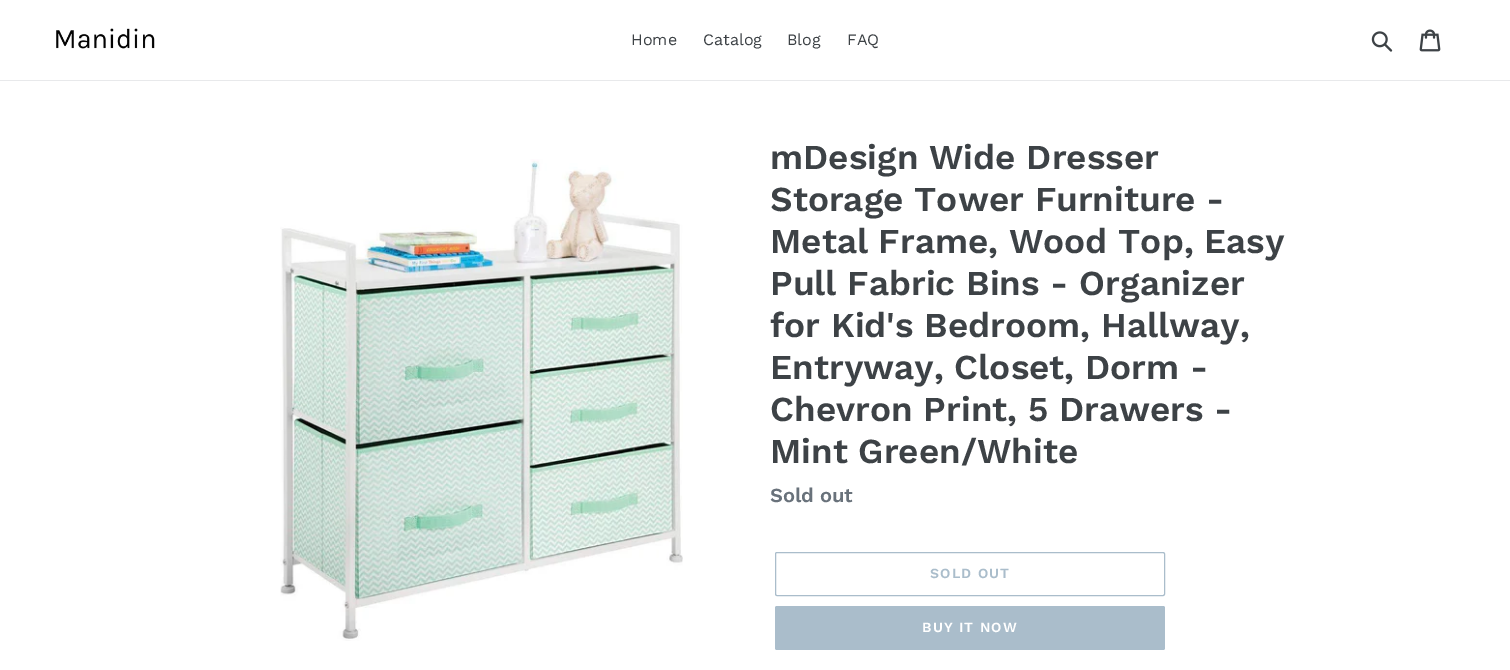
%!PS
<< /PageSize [1510 670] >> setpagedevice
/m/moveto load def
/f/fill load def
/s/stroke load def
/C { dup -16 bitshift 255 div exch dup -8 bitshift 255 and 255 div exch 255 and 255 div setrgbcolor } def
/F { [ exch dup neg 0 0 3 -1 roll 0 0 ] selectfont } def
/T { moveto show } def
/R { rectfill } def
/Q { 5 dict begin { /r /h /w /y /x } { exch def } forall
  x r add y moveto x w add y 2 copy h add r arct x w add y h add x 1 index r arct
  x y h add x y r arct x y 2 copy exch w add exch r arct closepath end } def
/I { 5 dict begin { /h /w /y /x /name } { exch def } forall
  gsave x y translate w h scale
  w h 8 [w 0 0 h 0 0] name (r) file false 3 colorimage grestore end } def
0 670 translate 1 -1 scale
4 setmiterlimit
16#FFFFFF C
0 0 1510 670 R
16#E8E9EB C
0 80 1510 1 R
(1.rgb) 56 28 99 21 I
/WorkSans-Regular 16 F
16#3D4246 C
(Home) 631 45 T
(Catalog) 703 45 T
(Blog) 787 45 T
(FAQ) 847 45 T
(2.rgb) 1371 31 22 21 I
(3.rgb) 1419 29 22 23 I
(4.rgb) 280 159 403 482 I
/WorkSans-SemiBold 35 F
(mDesign Wide Dresser) 770 169 T
(Storage Tower Furniture -) 770 211 T
(Metal Frame, Wood Top, Easy) 770 253 T
(Pull Fabric Bins - Organizer) 770 295 T
(for Kid's Bedroom, Hallway,) 770 337 T
(Entryway, Closet, Dorm -) 770 379 T
(Chevron Print, 5 Drawers -) 770 421 T
(Mint Green/White) 770 463 T
/WorkSans-SemiBold 20 F
16#69727B C
(Sold out) 770 502 T
16#AABDCB C
775.5 552.5 389 43 1.5 Q s
/WorkSans-SemiBold 14 F
930 578 m 1.1 0 (SOLD OUT) ashow
775 606 390 44 2 Q f
16#FFFFFF C
922 632 m 1.1 0 (BUY IT NOW) ashow
showpage
